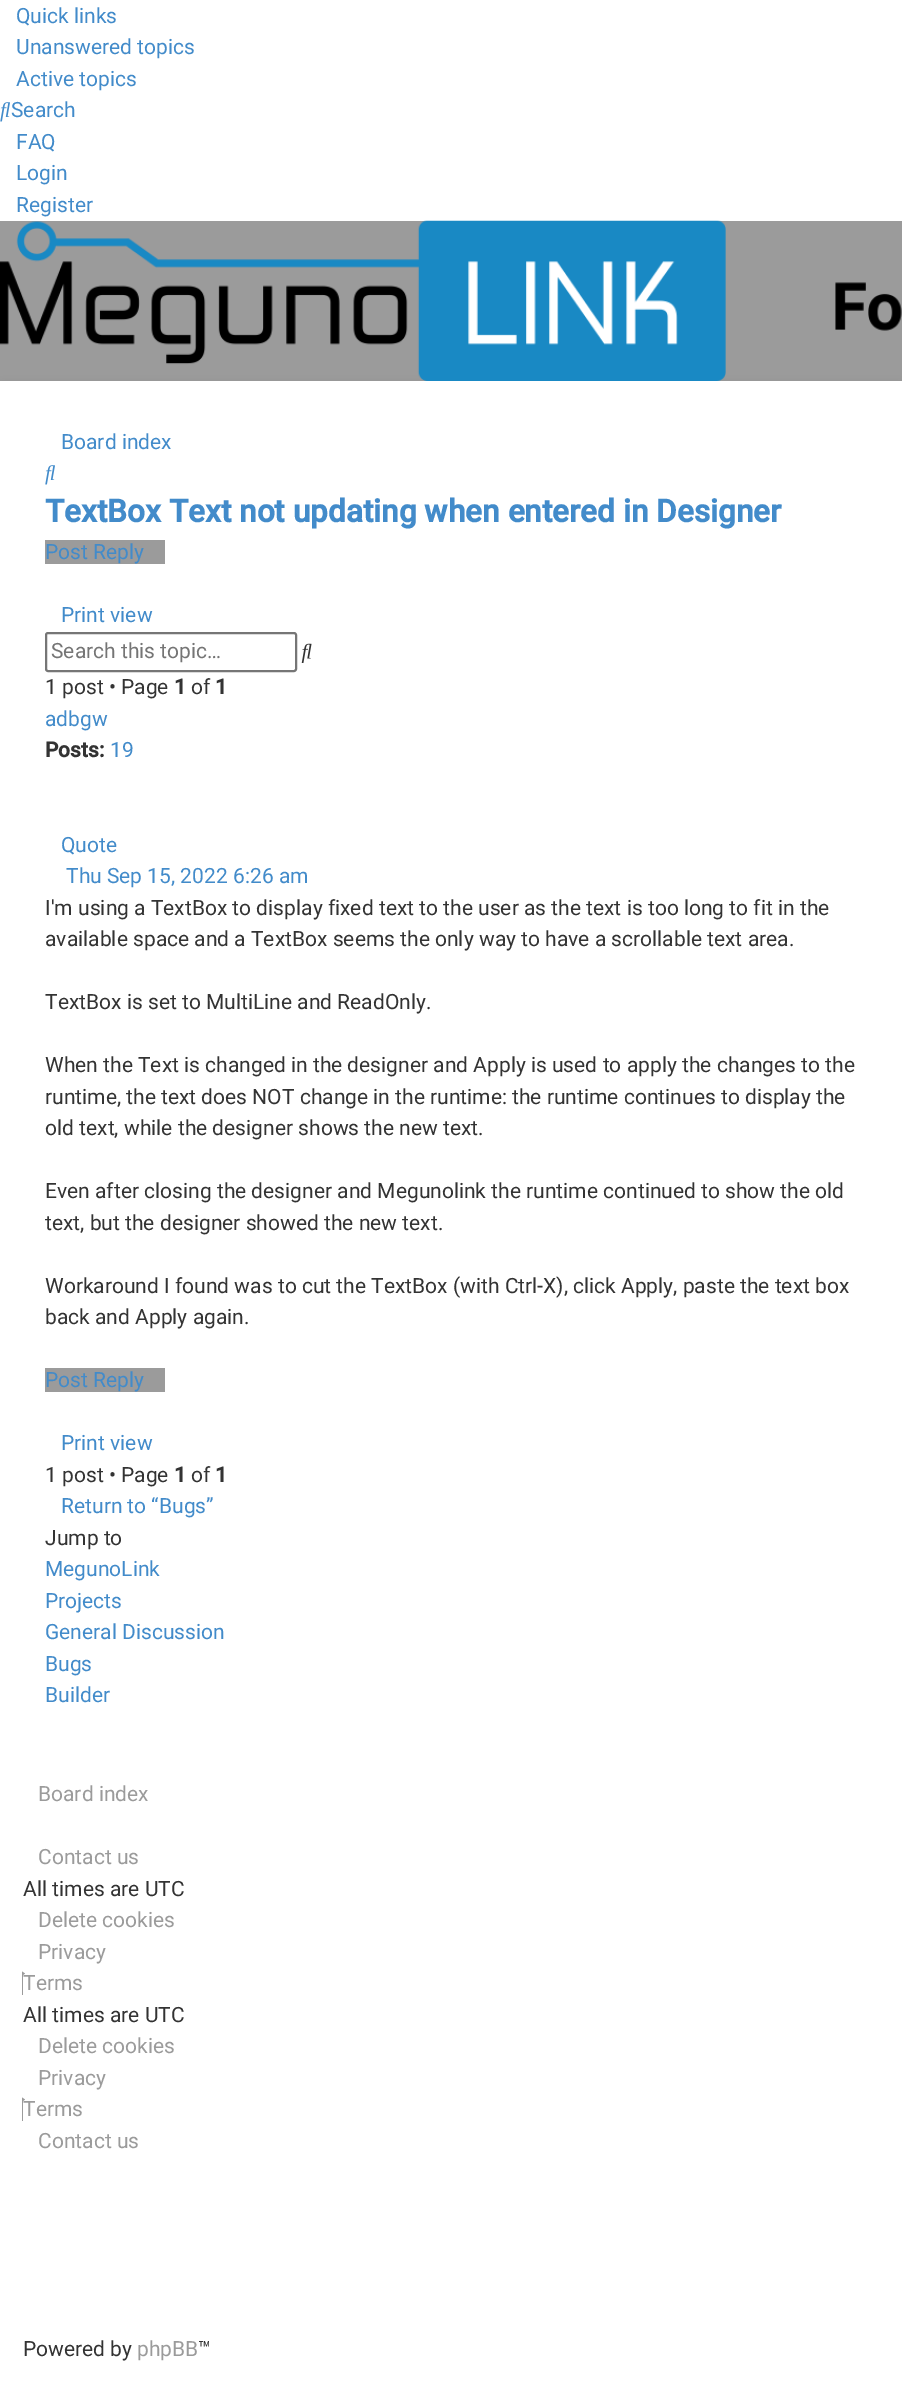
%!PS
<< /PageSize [902 2407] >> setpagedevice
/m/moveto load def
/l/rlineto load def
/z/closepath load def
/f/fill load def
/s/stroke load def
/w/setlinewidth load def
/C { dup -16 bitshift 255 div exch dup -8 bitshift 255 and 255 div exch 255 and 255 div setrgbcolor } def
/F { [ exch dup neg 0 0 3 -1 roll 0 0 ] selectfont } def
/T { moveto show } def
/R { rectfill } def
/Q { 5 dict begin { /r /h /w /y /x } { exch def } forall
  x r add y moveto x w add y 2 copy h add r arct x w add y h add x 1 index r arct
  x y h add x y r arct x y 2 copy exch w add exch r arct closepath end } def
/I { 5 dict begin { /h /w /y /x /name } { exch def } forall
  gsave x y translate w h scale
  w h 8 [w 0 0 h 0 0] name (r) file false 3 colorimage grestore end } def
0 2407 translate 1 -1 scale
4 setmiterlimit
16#FFFFFF C
0 0 902 2407 R
/Roboto-Regular 21 F
16#428BCA C
(Quick links) 16 23 T
(Unanswered topics) 16 54 T
(Active topics) 16 86 T
(1.rgb) 0 102 10 20 I
(Search) 11 117 T
(FAQ) 16 149 T
(Login) 16 180 T
(Register) 16 212 T
16#9B9B9B C
0 221 902 160 R
(2.rgb) 0 220 902 161 I
16#428BCA C
(Board index) 61 449 T
(1.rgb) 45 465 10 20 I
/Roboto-Bold 31.5 F
(TextBox Text not updating when entered in Designer) 45 522 T
16#9B9B9B C
45 540 120 24 R
/Roboto-Regular 21 F
16#428BCA C
(Post Reply) 45 559 T
(Print view) 61 622 T
16#767676 C
2 w
46 633 250 38 2 Q s
16#757575 C
(Search this topic…) 51 658 T
(3.rgb) 301 643 11 20 I
16#333333 C
(1 post • Page) 45 694 T
/Roboto-Bold 21 F
(1) 174 694 T
/Roboto-Regular 21 F
(of) 191 694 T
/Roboto-Bold 21 F
(1) 215 694 T
/Roboto-Regular 21 F
16#428BCA C
(adbgw) 45 726 T
/Roboto-Bold 21 F
16#333333 C
(Posts:) 45 757 T
/Roboto-Regular 21 F
16#428BCA C
(19) 110 757 T
(Quote) 61 852 T
(Thu Sep 15, 2022 6:26 am) 66 883 T
16#333333 C
(I'm using a TextBox to display fixed text to the user as the text is too long to fit in the) 45 915 T
(available space and a TextBox seems the only way to have a scrollable text area.) 45 946 T
(TextBox is set to MultiLine and ReadOnly.) 45 1009 T
(When the Text is changed in the designer and Apply is used to apply the changes to the) 45 1072 T
(runtime, the text does NOT change in the runtime: the runtime continues to display the) 45 1104 T
(old text, while the designer shows the new text.) 45 1135 T
(Even after closing the designer and Megunolink the runtime continued to show the old) 45 1198 T
(text, but the designer showed the new text.) 45 1230 T
(Workaround I found was to cut the TextBox \(with Ctrl-X\), click Apply, paste the text box) 45 1293 T
(back and Apply again.) 45 1324 T
16#9B9B9B C
45 1368 120 24 R
16#428BCA C
(Post Reply) 45 1387 T
(Print view) 61 1450 T
16#333333 C
(1 post • Page) 45 1482 T
/Roboto-Bold 21 F
(1) 174 1482 T
/Roboto-Regular 21 F
(of) 191 1482 T
/Roboto-Bold 21 F
(1) 215 1482 T
/Roboto-Regular 21 F
16#428BCA C
(Return to “Bugs”) 61 1513 T
16#333333 C
(Jump to) 45 1545 T
16#428BCA C
(MegunoLink) 45 1576 T
(Projects) 45 1608 T
(General Discussion) 45 1639 T
(Bugs) 45 1671 T
(Builder) 45 1702 T
16#9B9B9B C
(Board index) 38 1801 T
(Contact us) 38 1864 T
16#333333 C
(All times are UTC) 23 1896 T
16#9B9B9B C
(Delete cookies) 38 1927 T
(Privacy) 38 1959 T
25 1973.5 m -2 1.5 l 0 20 l -1 0 l 0 -23.5 l z f
(Terms) 23 1990 T
16#333333 C
(All times are UTC) 23 2022 T
16#9B9B9B C
(Delete cookies) 38 2053 T
(Privacy) 38 2085 T
25 2099.5 m -2 1.5 l 0 20 l -1 0 l 0 -23.5 l z f
(Terms) 23 2116 T
(Contact us) 38 2148 T
16#333333 C
(Powered by) 23 2356 T
16#9B9B9B C
(phpBB) 137 2356 T
16#333333 C
(™) 198 2356 T
showpage
